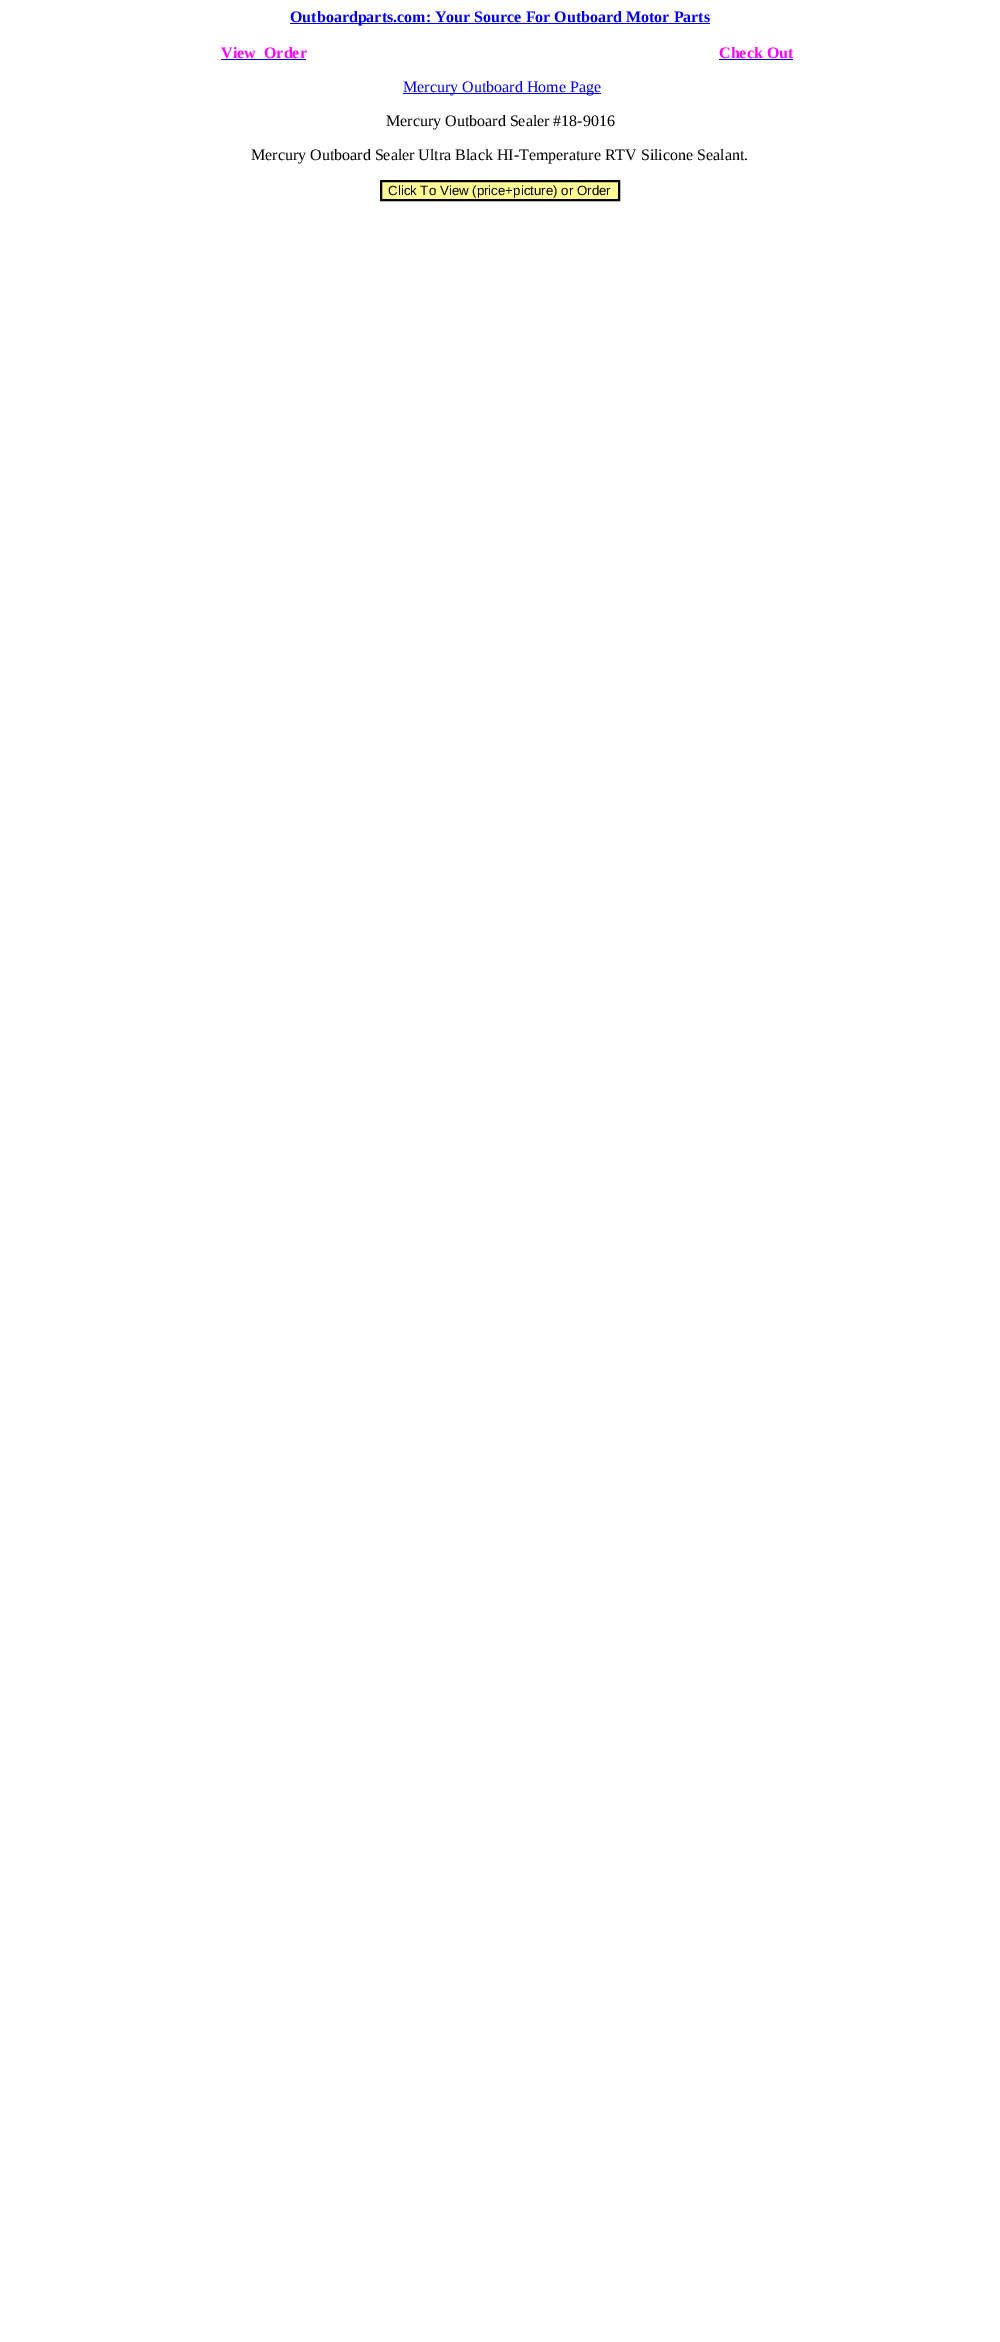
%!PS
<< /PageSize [1000 2342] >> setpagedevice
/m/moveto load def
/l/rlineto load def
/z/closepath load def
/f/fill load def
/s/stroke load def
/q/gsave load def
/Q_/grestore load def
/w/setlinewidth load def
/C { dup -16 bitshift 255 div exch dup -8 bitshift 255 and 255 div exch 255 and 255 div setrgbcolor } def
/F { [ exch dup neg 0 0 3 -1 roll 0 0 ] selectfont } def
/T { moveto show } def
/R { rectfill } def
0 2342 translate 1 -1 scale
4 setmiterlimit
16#FFFFFF C
0 0 1000 2342 R
16#0000EE C
290 23 420 1 R
/LiberationSerif-Bold 16 F
(Outboardparts.com: Your Source For Outboard Motor Parts) 290 22 T
16#FF00FF C
(View) 221 58 T
16#0000EE C
221 59 85 1 R
16#FF00FF C
(Order) 264 58 T
(Check Out) 719 58 T
16#0000EE C
719 59 74 1 R
403 93 198 1 R
/LiberationSerif-Regular 16 F
(Mercury Outboard Home Page) 403 92 T
16#000000 C
(Mercury Outboard Sealer #18-9016) 386 126 T
(Mercury Outboard Sealer Ultra Black HI-Temperature RTV Silicone Sealant.) 251 160 T
16#FFFA93 C
381 181 m 238 0 l 0 19 l -238 0 l z q f Q_
16#000000 C
2 w
s
/LiberationSans-Regular 13.3 F
(Click To View \(price+picture\) or Order) 388 195 T
showpage
